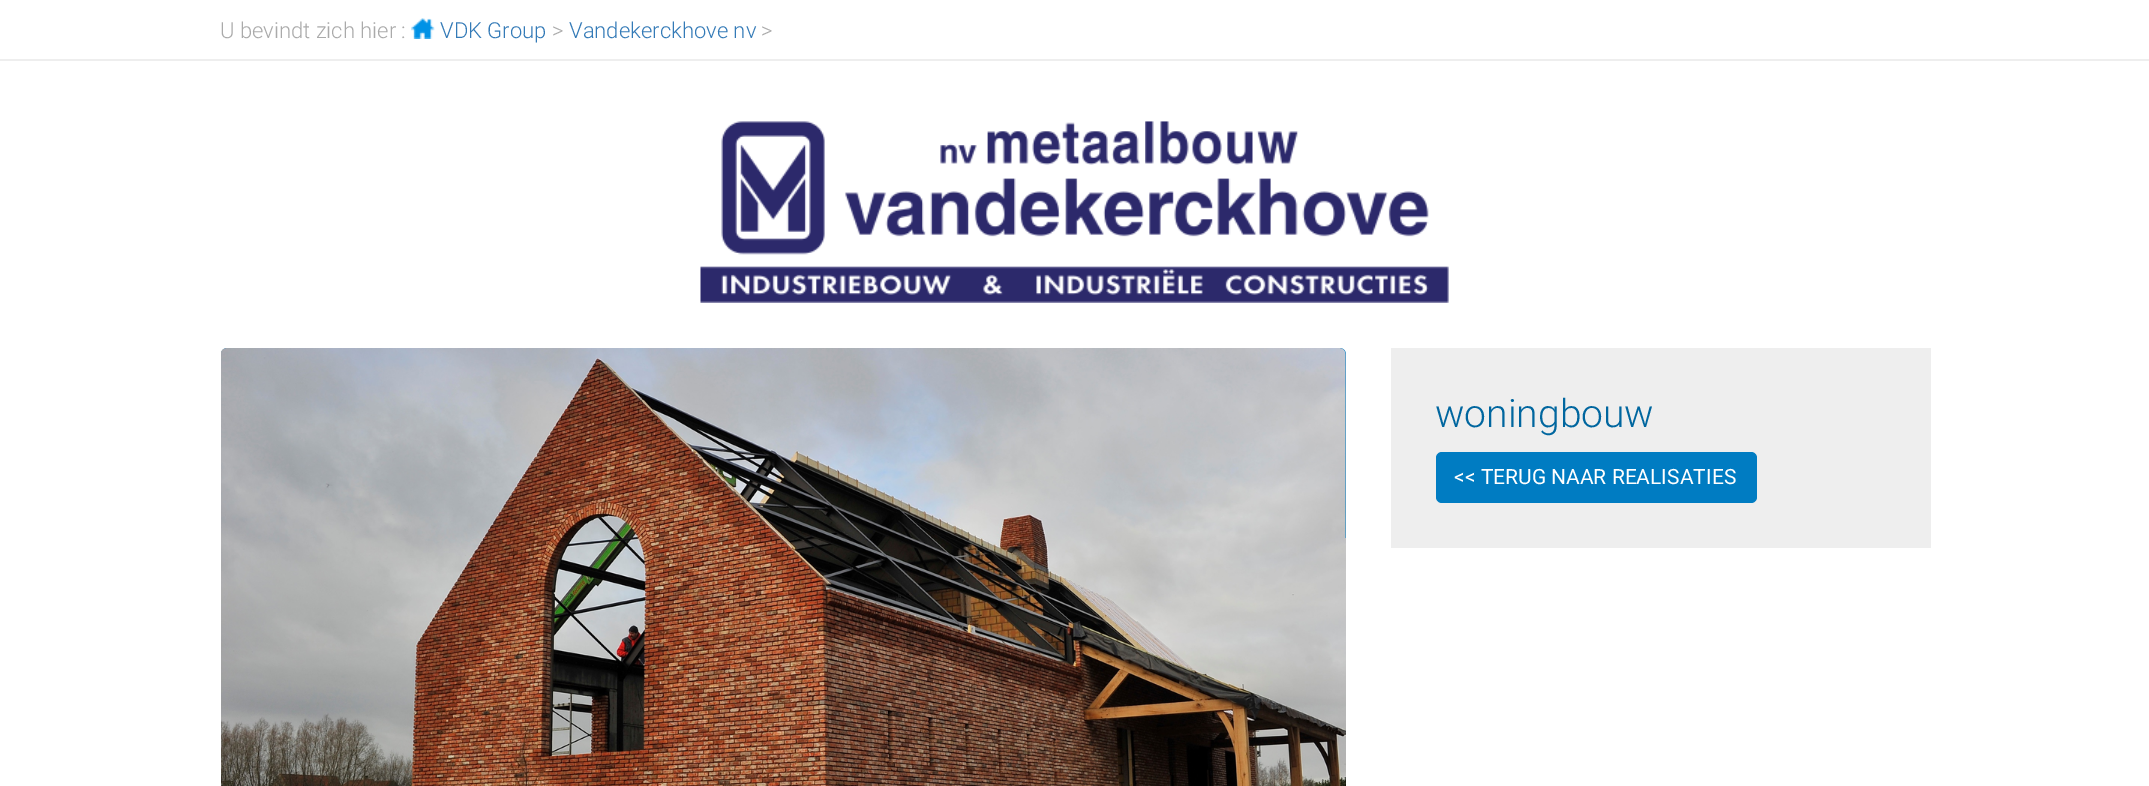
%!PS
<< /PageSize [2149 786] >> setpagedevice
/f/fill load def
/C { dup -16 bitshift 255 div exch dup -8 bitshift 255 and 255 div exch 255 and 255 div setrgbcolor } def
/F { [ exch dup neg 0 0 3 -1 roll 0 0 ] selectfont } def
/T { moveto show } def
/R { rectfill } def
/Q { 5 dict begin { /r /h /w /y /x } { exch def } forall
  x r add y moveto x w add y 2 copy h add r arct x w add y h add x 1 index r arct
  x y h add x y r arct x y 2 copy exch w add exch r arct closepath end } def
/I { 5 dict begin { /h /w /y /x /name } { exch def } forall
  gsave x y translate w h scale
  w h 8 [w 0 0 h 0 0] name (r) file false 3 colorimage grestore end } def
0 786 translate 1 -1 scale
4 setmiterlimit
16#FFFFFF C
0 0 2149 786 R
16#EEEEEE C
0 59 2149 2 R
/Roboto-Light 22 F
16#AAAAAA C
(U bevindt zich hier :) 220 38 T
(1.rgb) 411 18 24 21 I
16#337AB7 C
(VDK Group) 440 38 T
16#AAAAAA C
(>) 552 38 T
16#337AB7 C
(Vandekerckhove nv) 569 38 T
16#AAAAAA C
(>) 761 38 T
(2.rgb) 700 121 749 182 I
16#007CC2 C
221 348 1125 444 6 Q f
(3.rgb) 221 348 1125 438 I
16#EEEEEE C
1391 348 540 200 R
/Roboto-Light 39 F
16#00669F C
(woningbouw) 1435 427 T
16#007CC2 C
1436 452 321 51 6 Q f
/Roboto-Regular 21 F
16#FFFFFF C
(<< TERUG NAAR REALISATIES) 1454 484 T
showpage
